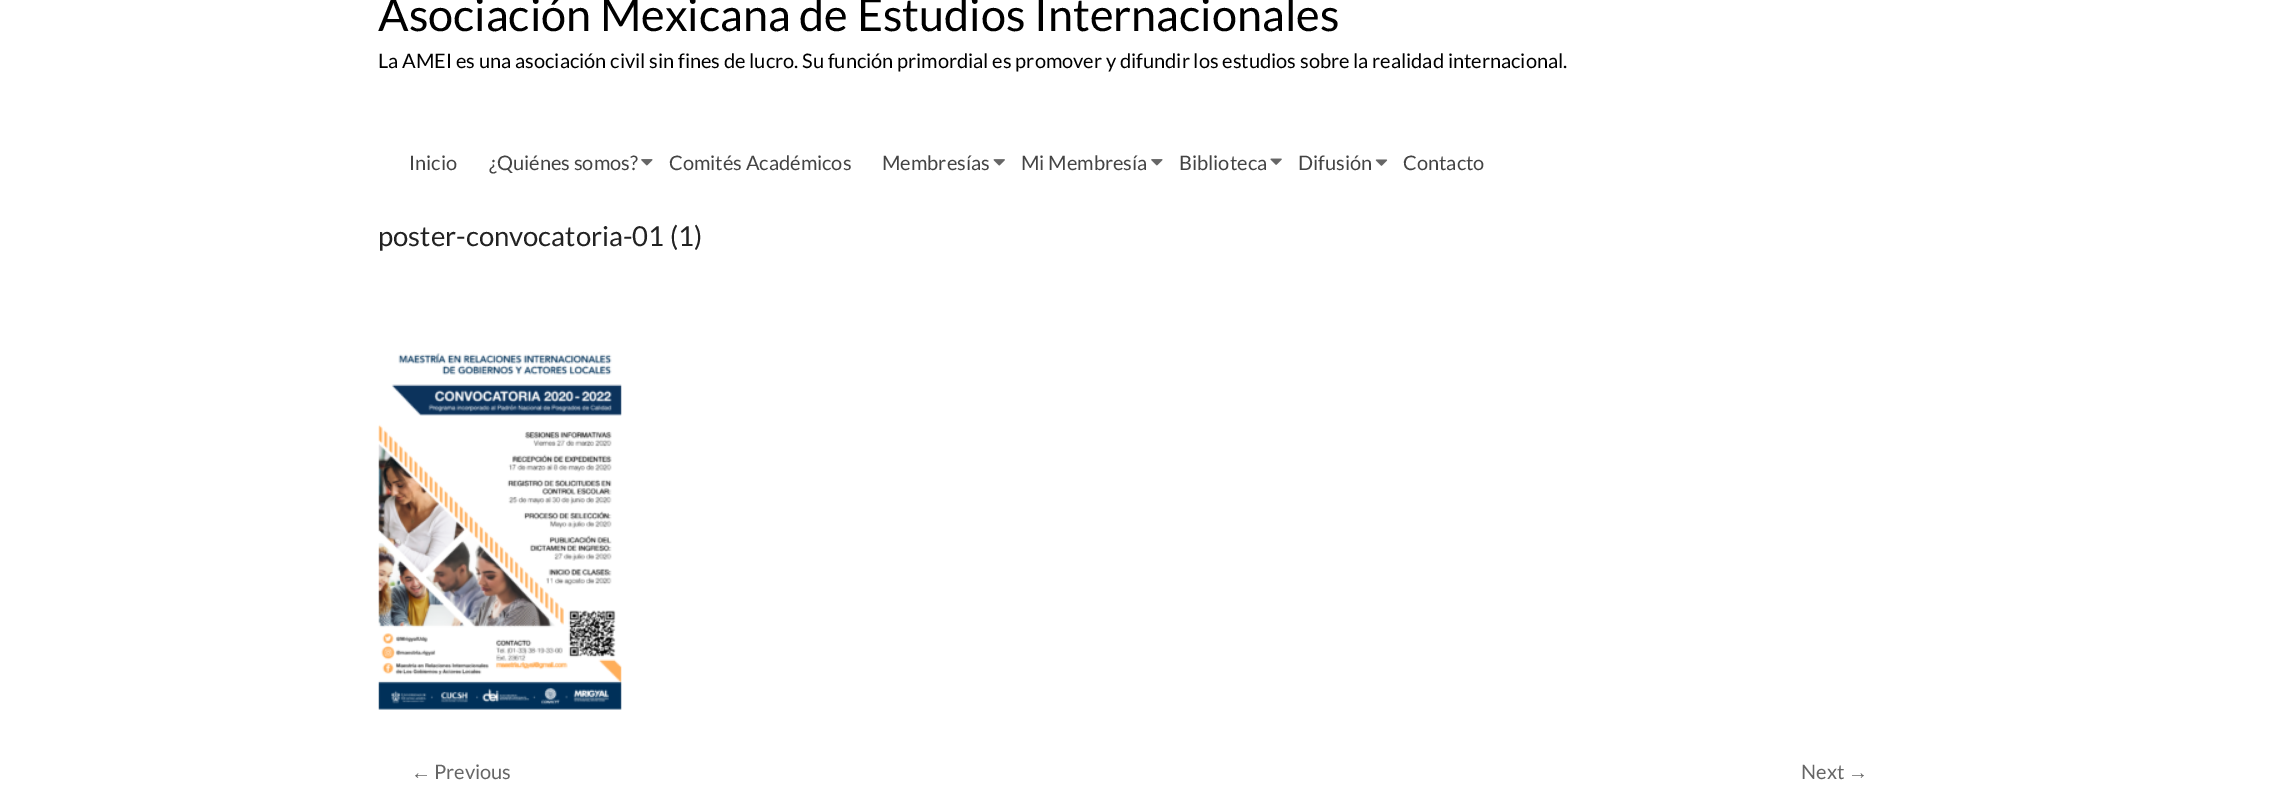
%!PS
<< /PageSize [2278 790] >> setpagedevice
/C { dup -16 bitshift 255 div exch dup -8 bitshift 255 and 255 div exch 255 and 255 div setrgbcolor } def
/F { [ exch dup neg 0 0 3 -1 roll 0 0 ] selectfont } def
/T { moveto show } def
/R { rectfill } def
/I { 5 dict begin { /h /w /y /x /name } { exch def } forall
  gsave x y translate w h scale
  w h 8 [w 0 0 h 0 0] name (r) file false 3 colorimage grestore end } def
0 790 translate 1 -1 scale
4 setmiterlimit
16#FFFFFF C
0 0 2278 790 R
/Lato-Regular 45 F
16#000000 C
(Asociación Mexicana de Estudios Internacionales) 378 31 T
/Lato-Regular 20 F
(La AMEI es una asociación civil sin fines de lucro. Su función primordial es promover y difundir los estudios sobre la realidad internacional.) 378 68 T
16#444444 C
(Inicio) 409 170 T
(¿Quiénes somos?) 489 170 T
(1.rgb) 641 159 12 7 I
(Comités Académicos) 669 170 T
(Membresías) 882 170 T
(2.rgb) 993 159 12 7 I
(Mi Membresía) 1021 170 T
(3.rgb) 1151 159 12 7 I
(Biblioteca) 1179 170 T
(4.rgb) 1270 158 12 7 I
(Difusión) 1298 170 T
(5.rgb) 1375 159 13 7 I
(Contacto) 1403 170 T
/Lato-Regular 27.5 F
16#222222 C
(poster-convocatoria-01 \(1\)) 378 246 T
(6.rgb) 378 353 244 357 I
/LiberationSans-Regular 20 F
16#666666 C
(←) 411 779 T
/Lato-Regular 20 F
(Previous) 434 779 T
(Next) 1801 779 T
/LiberationSans-Regular 20 F
(→) 1848 779 T
showpage
